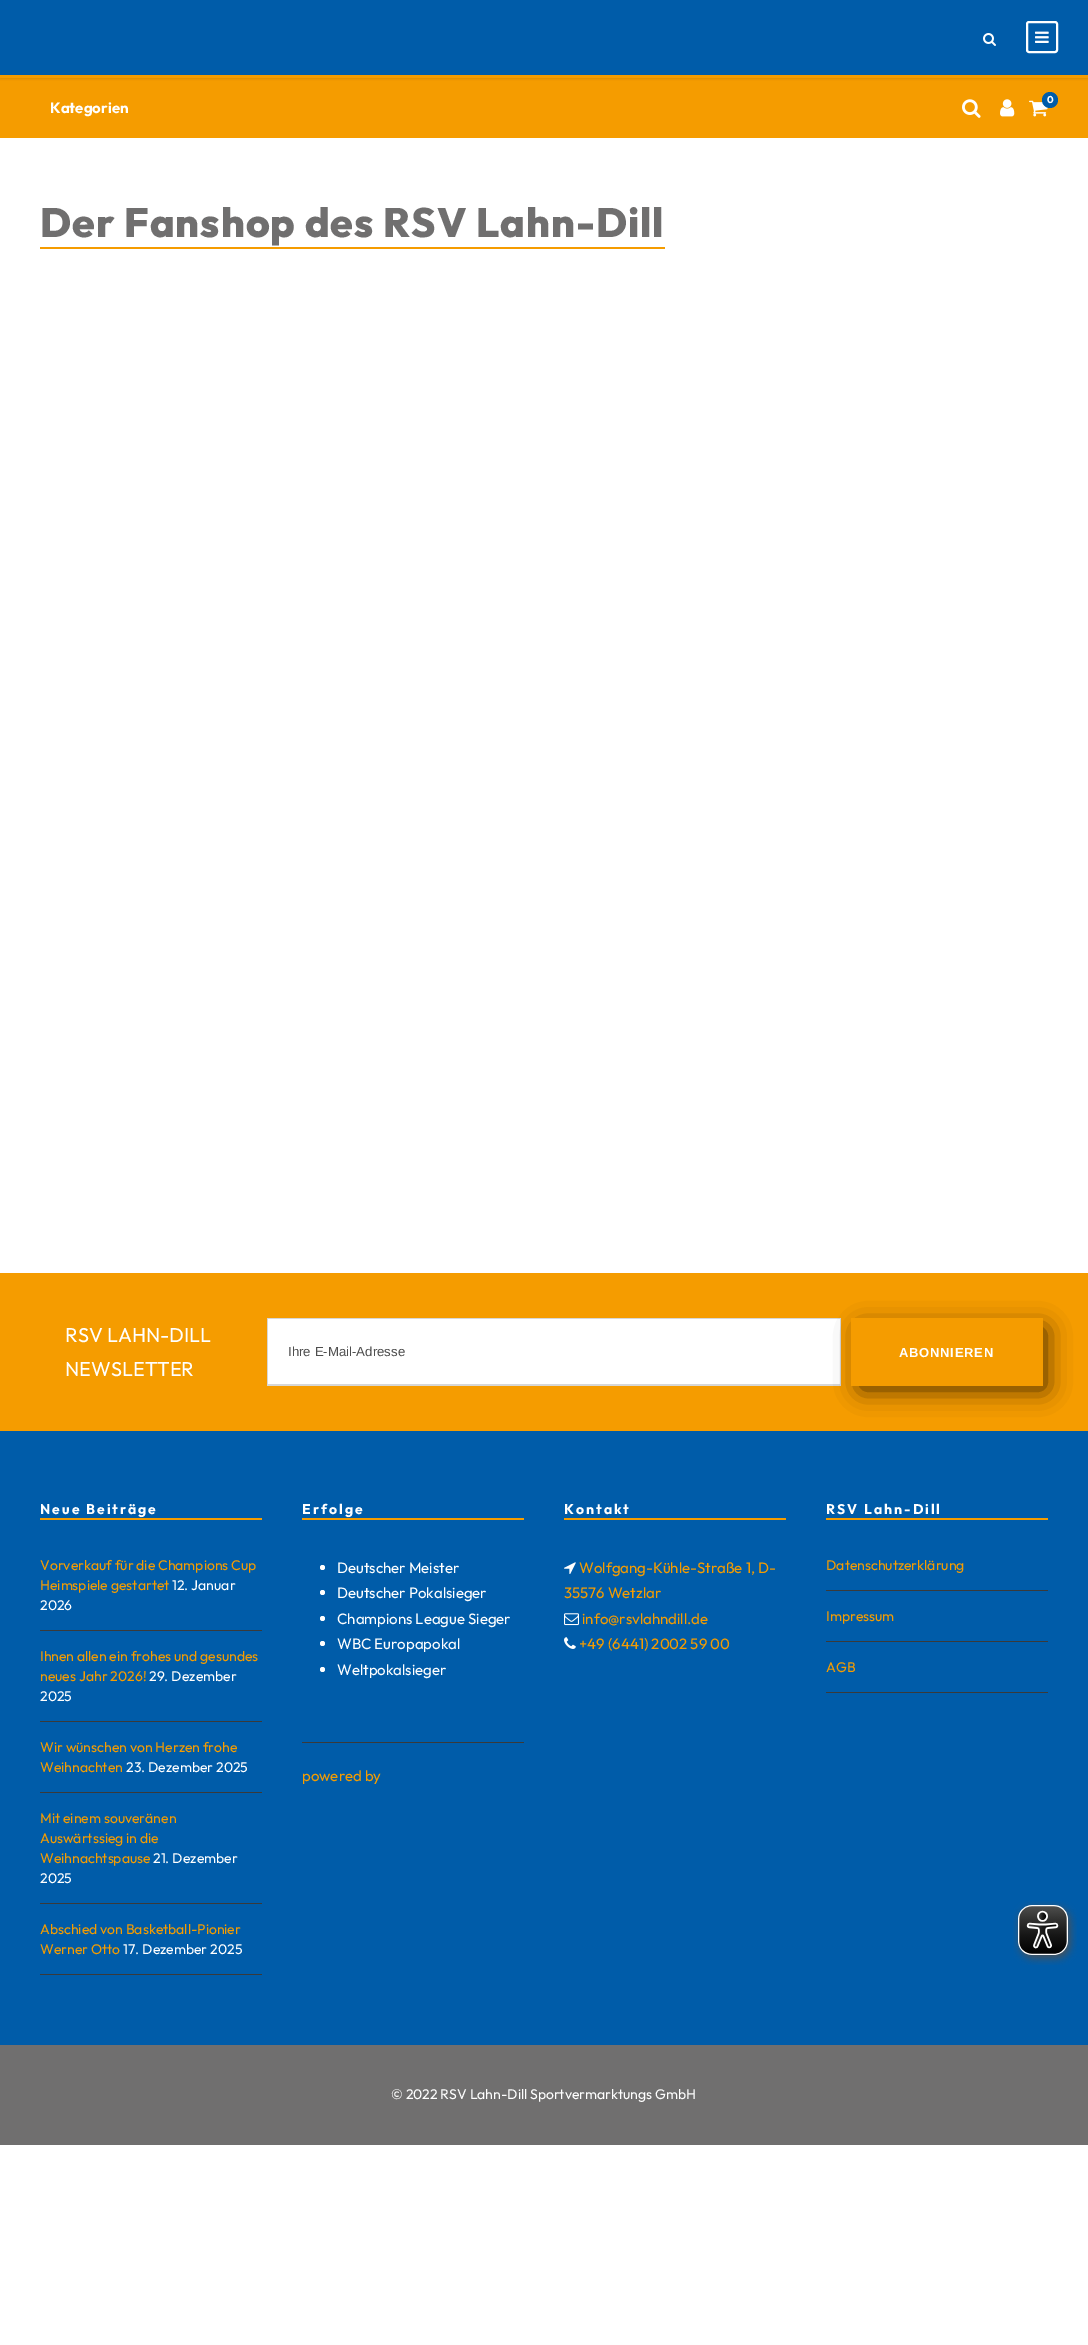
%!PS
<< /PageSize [1088 2345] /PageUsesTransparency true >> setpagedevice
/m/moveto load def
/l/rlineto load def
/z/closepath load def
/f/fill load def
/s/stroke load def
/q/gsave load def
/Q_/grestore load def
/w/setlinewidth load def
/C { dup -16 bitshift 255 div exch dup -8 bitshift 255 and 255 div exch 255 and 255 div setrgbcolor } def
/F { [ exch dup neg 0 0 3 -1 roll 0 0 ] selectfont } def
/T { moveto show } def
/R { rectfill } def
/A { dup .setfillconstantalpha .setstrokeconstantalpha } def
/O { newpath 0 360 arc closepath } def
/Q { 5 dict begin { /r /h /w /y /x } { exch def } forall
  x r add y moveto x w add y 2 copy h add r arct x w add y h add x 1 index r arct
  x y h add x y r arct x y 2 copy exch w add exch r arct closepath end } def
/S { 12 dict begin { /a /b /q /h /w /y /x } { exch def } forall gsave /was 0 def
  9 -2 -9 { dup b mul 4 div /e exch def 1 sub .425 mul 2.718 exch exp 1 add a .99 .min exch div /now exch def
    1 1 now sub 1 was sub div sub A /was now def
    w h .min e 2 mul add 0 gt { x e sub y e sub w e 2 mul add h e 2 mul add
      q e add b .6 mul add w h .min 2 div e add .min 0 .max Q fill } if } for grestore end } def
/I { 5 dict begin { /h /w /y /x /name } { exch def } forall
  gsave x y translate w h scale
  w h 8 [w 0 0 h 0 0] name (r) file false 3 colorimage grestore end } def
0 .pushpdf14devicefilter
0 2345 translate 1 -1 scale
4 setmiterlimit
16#FFFFFF C
0 0 1088 2345 R
16#F59C00 C
0 78 1088 60 R
16#000000 C
0 1 1088 78 0 1 .1 S
16#005CA9 C
0 0 1088 75 R
16#F59C00 C
0 75 1088 3 R
(1.rgb) 983 33 13 13 I
16#FFFFFF C
2 w
1027 22 30 30 2 Q s
(2.rgb) 1035 31 14 12 I
/Outfit-Bold 15 F
(Kategorien) 50 113 T
(3.rgb) 962 99 19 19 I
(4.rgb) 1000 99 15 18 I
(5.rgb) 1029 100 19 17 I
16#005CA9 C
1050 100 8 O f
/Outfit-Bold 10 F
16#FFFFFF C
(0) 1047 103 T
16#F59C00 C
40 247 625 2 R
/Outfit-ExtraBold 41 F
16#706F6F C
40 237 m 1 0 (Der Fanshop des RSV Lahn-Dill) ashow
16#F59C00 C
0 1273 1088 158 R
/Outfit-Regular 20 F
16#FFFFFF C
(RSV LAHN-DILL) 65 1342 T
(NEWSLETTER) 65 1376 T
268 1319 572 65 R
16#D7D7D7 C
267 1318 574 1 R
840 1318 1 68 R
267 1384 574 2 R
267 1318 1 68 R
/LiberationSans-Regular 13.25 F
16#4E4E4E C
(Ihre E-Mail-Adresse) 288 1356 T
q
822 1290 m 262 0 l 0 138 l -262 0 l z 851 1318 m 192 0 l 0 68 l -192 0 l z eoclip newpath
16#000000 C
861 1329 184 60 0 12.5 .75 S
Q_
/LiberationSans-Bold 13 F
16#FFFFFF C
899 1357 m .75 0 (ABONNIEREN) ashow
16#005CA9 C
0 1431 1088 614 R
16#F59C00 C
40 1518 222 2 R
/Outfit-Bold 14 F
16#FFFFFF C
40 1514 m 2 0 (Neue Beiträge) ashow
16#3A3A3A C
40 1630 222 1 R
/Outfit-Regular 14 F
16#F59C00 C
(Vorverkauf für die Champions Cup) 40 1570 T
(Heimspiele gestartet) 40 1590 T
16#FFFFFF C
(12. Januar) 172 1590 T
(2026) 40 1610 T
16#3A3A3A C
40 1721 222 1 R
16#F59C00 C
(Ihnen allen ein frohes und gesundes) 40 1661 T
(neues Jahr 2026!) 40 1681 T
16#FFFFFF C
(29. Dezember) 149 1681 T
(2025) 40 1701 T
16#3A3A3A C
40 1792 222 1 R
16#F59C00 C
(Wir wünschen von Herzen frohe) 40 1752 T
(Weihnachten) 40 1772 T
16#FFFFFF C
(23. Dezember 2025) 126 1772 T
16#3A3A3A C
40 1903 222 1 R
16#F59C00 C
(Mit einem souveränen) 40 1823 T
(Auswärtssieg in die) 40 1843 T
(Weihnachtspause) 40 1863 T
16#FFFFFF C
(21. Dezember) 153 1863 T
(2025) 40 1883 T
16#3A3A3A C
40 1974 222 1 R
16#F59C00 C
(Abschied von Basketball-Pionier) 40 1934 T
(Werner Otto) 40 1954 T
16#FFFFFF C
(17. Dezember 2025) 123 1954 T
16#F59C00 C
302 1518 222 2 R
/Outfit-Bold 14 F
16#FFFFFF C
302 1514 m 2 0 (Erfolge) ashow
322.5 1567.5 2.5 O f
/Outfit-Regular 15 F
(Deutscher Meister) 337 1573 T
322.5 1592.5 2.5 O f
(Deutscher Pokalsieger) 337 1598 T
322.5 1618.5 2.5 O f
(Champions League Sieger) 337 1624 T
322.5 1643.5 2.5 O f
(WBC Europapokal) 337 1649 T
322.5 1669.5 2.5 O f
(Weltpokalsieger) 337 1675 T
16#3A3A3A C
302 1742 222 1 R
16#F59C00 C
(powered by) 302 1781 T
564 1518 222 2 R
/Outfit-Bold 14 F
16#FFFFFF C
564 1514 m 2 0 (Kontakt) ashow
(6.rgb) 564 1562 12 12 I
/Outfit-Regular 15 F
16#F59C00 C
(Wolfgang-Kühle-Straße 1, D-) 579 1573 T
(35576 Wetzlar) 564 1598 T
(7.rgb) 564 1613 15 13 I
(info@rsvlahndill.de) 582 1624 T
(8.rgb) 564 1637 12 12 I
(+49 \(6441\) 2002 59 00) 579 1649 T
826 1518 222 2 R
/Outfit-Bold 14 F
16#FFFFFF C
826 1514 m 2 0 (RSV Lahn-Dill) ashow
16#3A3A3A C
826 1590 222 1 R
/Outfit-Regular 14 F
16#F59C00 C
(Datenschutzerklärung) 826 1570 T
16#3A3A3A C
826 1641 222 1 R
16#F59C00 C
(Impressum) 826 1621 T
16#3A3A3A C
826 1692 222 1 R
16#F59C00 C
(AGB) 826 1672 T
16#706F6F C
0 2045 1088 100 R
16#FFFFFF C
(© 2022 RSV Lahn-Dill Sportvermarktungs GmbH) 391 2099 T
(9.rgb) 1013 1901 64 64 I
.poppdf14devicefilter showpage
